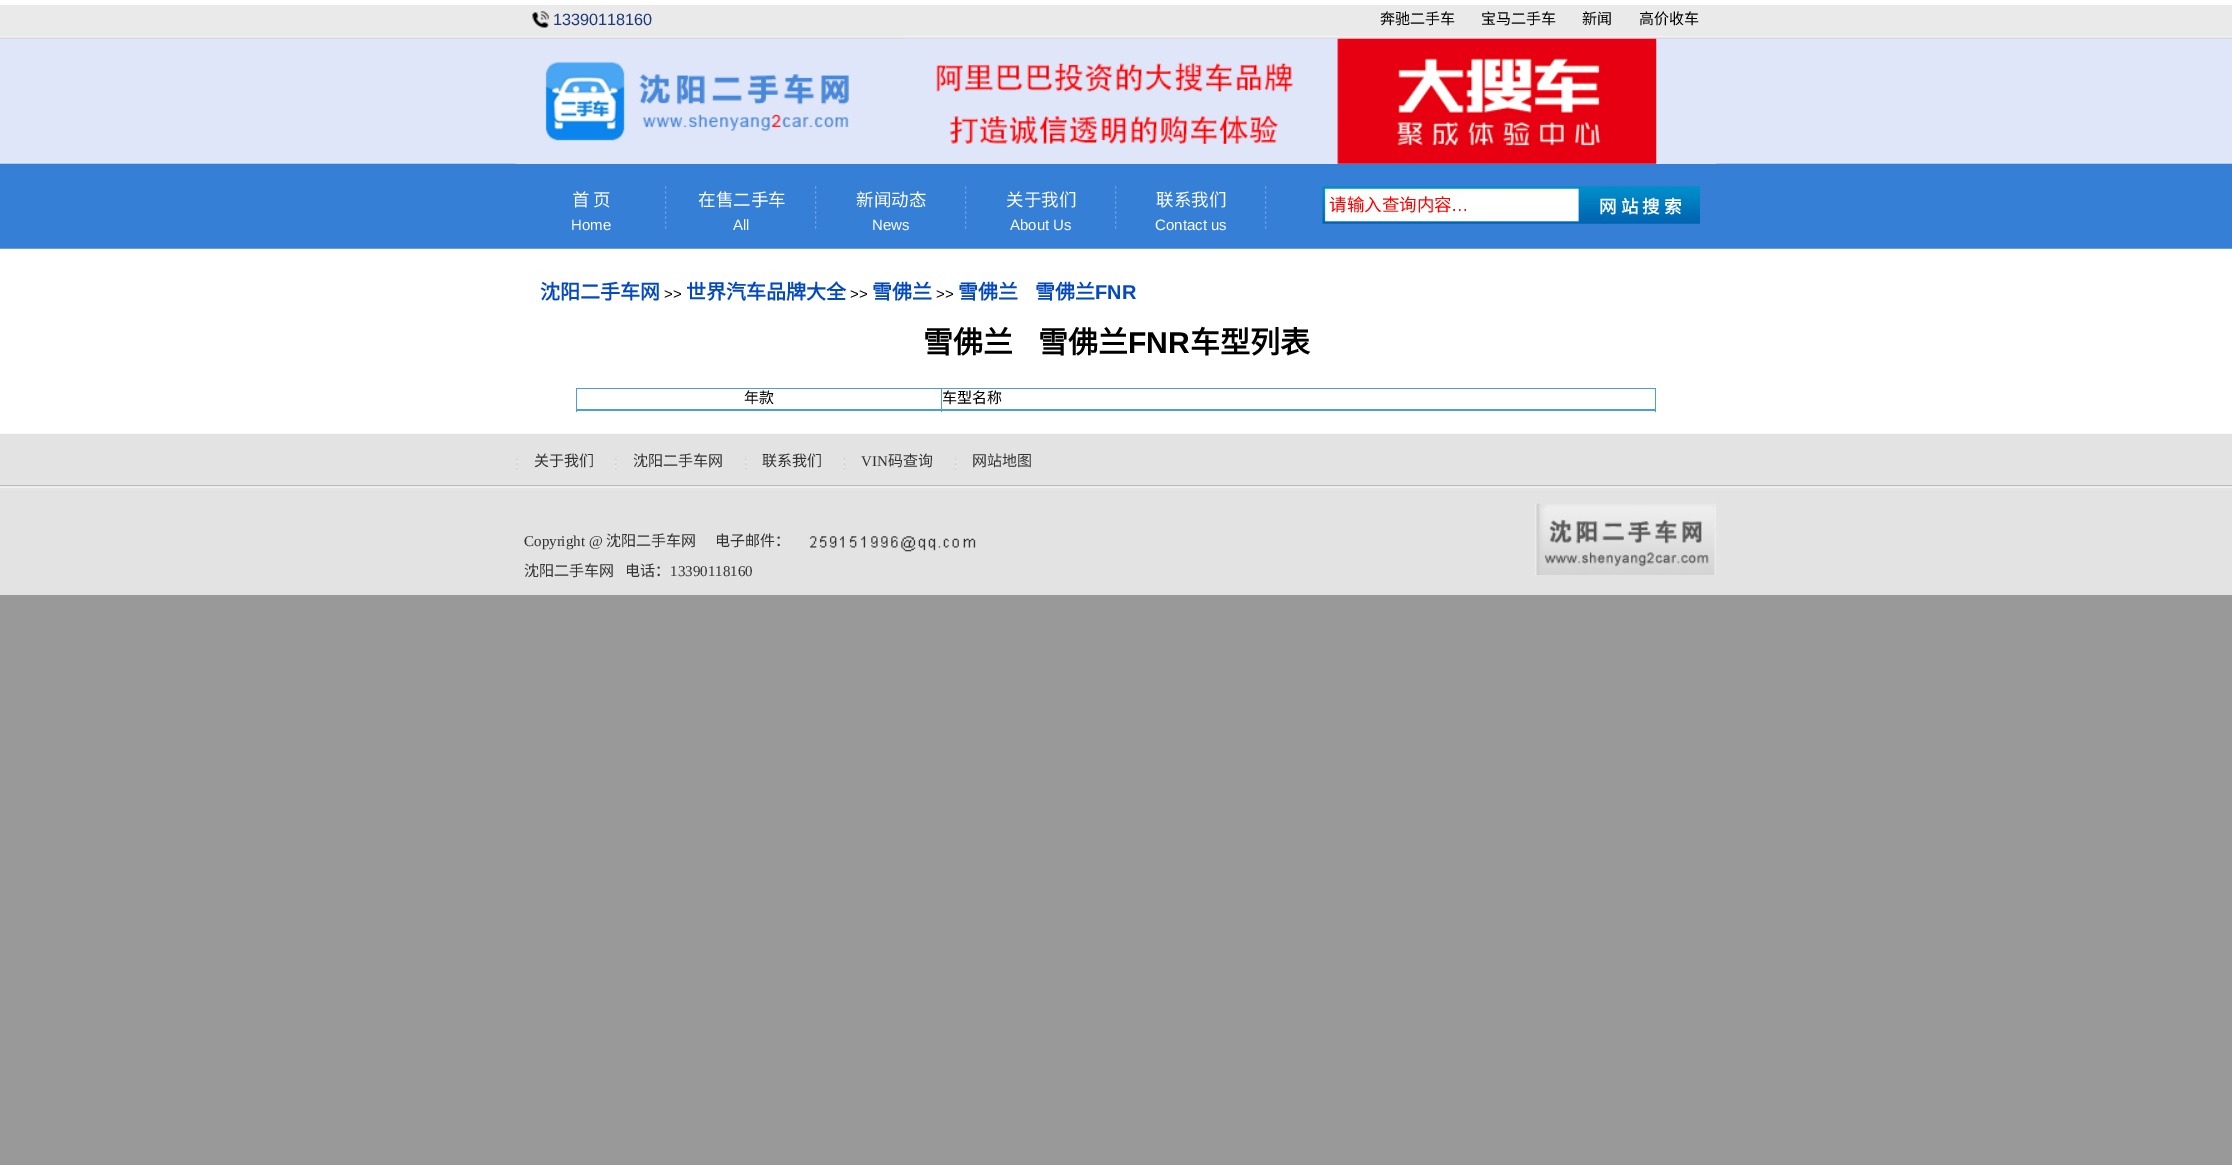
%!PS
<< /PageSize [2232 1165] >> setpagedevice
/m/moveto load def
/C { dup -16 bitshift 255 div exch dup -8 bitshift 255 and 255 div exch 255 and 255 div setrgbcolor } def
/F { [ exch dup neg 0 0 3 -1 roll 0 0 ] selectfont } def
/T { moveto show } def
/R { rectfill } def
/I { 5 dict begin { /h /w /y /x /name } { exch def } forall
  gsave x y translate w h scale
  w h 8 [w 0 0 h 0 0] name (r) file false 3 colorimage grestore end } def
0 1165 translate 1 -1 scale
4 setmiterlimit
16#999999 C
0 0 2232 1165 R
16#FFFFFF C
0 0 2232 434 R
(1.rgb) 0 5 2232 244 I
(2.rgb) 532 11 17 17 I
/LiberationSans-Regular 16.25 F
16#1F3B7B C
(13390118160) 553 25 T
/NotoSansCJKSC-Regular 15 F
16#000000 C
(奔驰二手车) 1380 24 T
(宝马二手车) 1481 24 T
(新闻) 1582 24 T
(高价收车) 1639 24 T
16#DFE6F9 C
516 163 1200 1 R
(3.rgb) 545 62 304 79 I
(4.rgb) 904 38 753 126 I
(5.rgb) 665 186 2 43 I
/NotoSansCJKSC-Regular 17.5 F
16#FFFFFF C
(首 页) 572 206 T
/LiberationSans-Regular 15 F
(Home) 571 230 T
(5.rgb) 815 186 2 43 I
/NotoSansCJKSC-Regular 17.5 F
(在售二手车) 698 206 T
/LiberationSans-Regular 15 F
(All) 733 230 T
(5.rgb) 965 186 2 43 I
/NotoSansCJKSC-Regular 17.5 F
(新闻动态) 856 206 T
/LiberationSans-Regular 15 F
(News) 872 230 T
(5.rgb) 1115 186 2 43 I
/NotoSansCJKSC-Regular 17.5 F
(关于我们) 1006 206 T
/LiberationSans-Regular 15 F
(About Us) 1010 230 T
(5.rgb) 1265 186 2 43 I
/NotoSansCJKSC-Regular 17.5 F
(联系我们) 1156 206 T
/LiberationSans-Regular 15 F
(Contact us) 1155 230 T
(6.rgb) 1322 186 257 38 I
/NotoSansCJKSC-Regular 17.5 F
16#FF0000 C
(请输入查询内容) 1329 211 T
/LiberationSans-Regular 17.5 F
(…) 1451 211 T
(7.rgb) 1578 186 122 38 I
/NotoSansCJKSC-Bold 17.5 F
16#FFFFFF C
1599 213 m 4 0 (网站搜索) ashow
/NotoSansCJKSC-Bold 20 F
16#0449BE C
(沈阳二手车网) 540 299 T
/LiberationSans-Regular 15 F
16#000000 C
(>>) 664 299 T
/NotoSansCJKSC-Bold 20 F
16#0449BE C
(世界汽车品牌大全) 686 299 T
/LiberationSans-Regular 15 F
16#000000 C
(>>) 850 299 T
/NotoSansCJKSC-Bold 20 F
16#0449BE C
(雪佛兰) 872 299 T
/LiberationSans-Regular 15 F
16#000000 C
(>>) 936 299 T
/NotoSansCJKSC-Bold 20 F
16#0449BE C
(雪佛兰) 958 299 T
(雪佛兰) 1035 299 T
/LiberationSans-Bold 20 F
(FNR) 1095 299 T
/NotoSansCJKSC-Bold 30 F
16#000000 C
(雪佛兰) 923 353 T
(雪佛兰) 1038 353 T
/LiberationSans-Bold 30 F
(FNR) 1128 353 T
/NotoSansCJKSC-Bold 30 F
(车型列表) 1190 353 T
16#4E9EDB C
576 388 1080 1 R
1655 388 1 23 R
576 410 1080 1 R
576 388 1 23 R
/NotoSansCJKSC-Regular 15 F
16#000000 C
(年款) 744 403 T
16#4E9EDB C
941 409 715 1 R
941 409 1 3 R
576 409 367 1 R
941 388 1 22 R
16#000000 C
(车型名称) 942 403 T
16#4E9EDB C
576 409 1 3 R
1655 409 1 3 R
(8.rgb) 0 433 2232 162 I
(9.rgb) 516 457 2 13 I
16#333333 C
(关于我们) 534 466 T
(10.rgb) 615 457 2 13 I
(沈阳二手车网) 633 466 T
(10.rgb) 745 457 2 13 I
(联系我们) 762 466 T
(11.rgb) 843 457 2 13 I
/LiberationSerif-Regular 15 F
(VIN) 861 466 T
/NotoSansCJKSC-Regular 15 F
(码查询) 888 466 T
(10.rgb) 955 457 2 13 I
(网站地图) 972 466 T
/LiberationSerif-Regular 15 F
(Copyright @) 524 546 T
/NotoSansCJKSC-Regular 15 F
(沈阳二手车网) 606 546 T
(电子邮件：) 715 546 T
(沈阳二手车网) 524 576 T
(电话：) 625 576 T
/LiberationSerif-Regular 15 F
(13390118160) 670 576 T
(12.rgb) 809 536 167 16 I
(13.rgb) 1535 503 181 72 I
showpage
